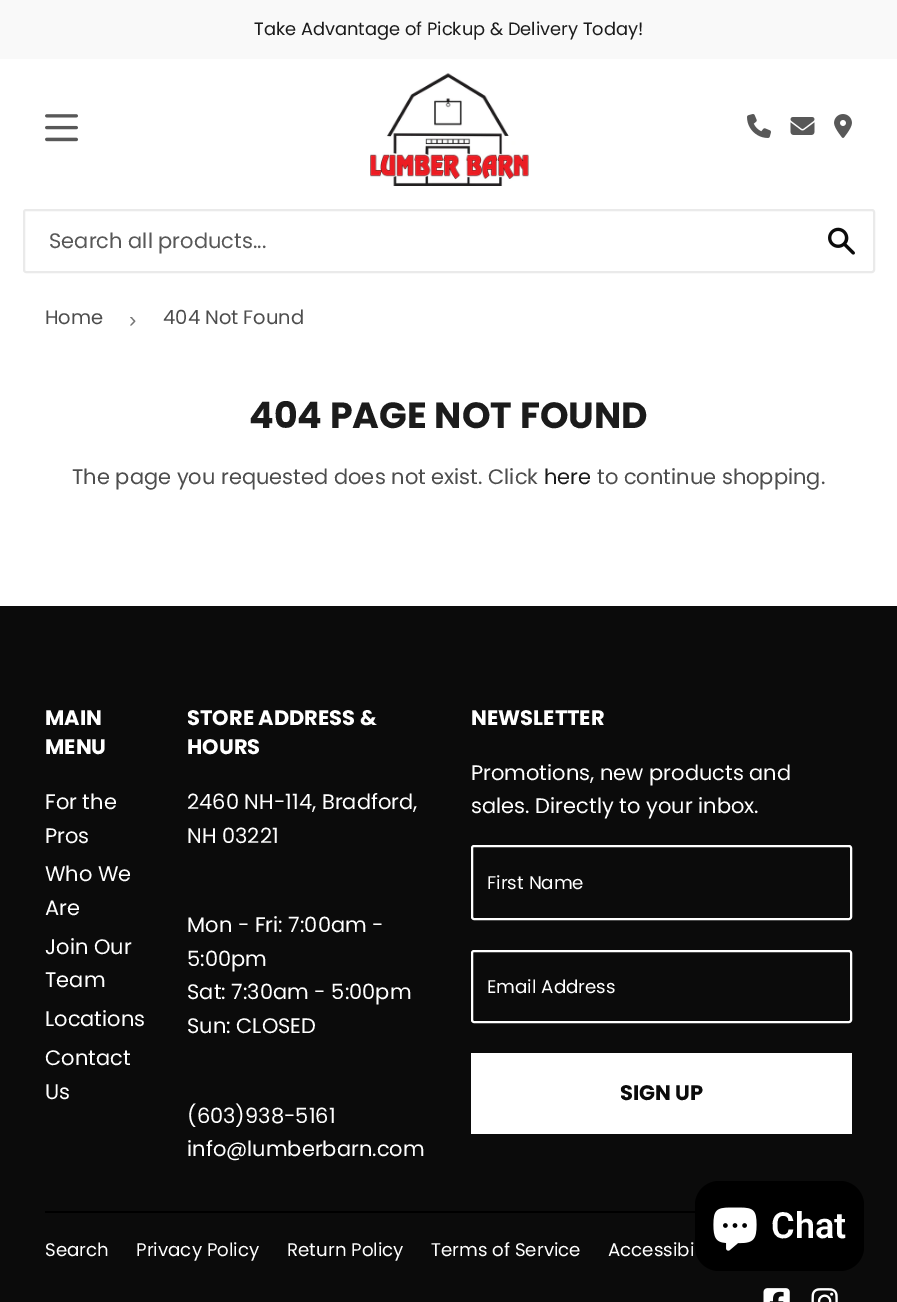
%!PS
<< /PageSize [897 1302] /PageUsesTransparency true >> setpagedevice
/f/fill load def
/s/stroke load def
/w/setlinewidth load def
/C { dup -16 bitshift 255 div exch dup -8 bitshift 255 and 255 div exch 255 and 255 div setrgbcolor } def
/F { [ exch dup neg 0 0 3 -1 roll 0 0 ] selectfont } def
/T { moveto show } def
/R { rectfill } def
/A { dup .setfillconstantalpha .setstrokeconstantalpha } def
/Q { 5 dict begin { /r /h /w /y /x } { exch def } forall
  x r add y moveto x w add y 2 copy h add r arct x w add y h add x 1 index r arct
  x y h add x y r arct x y 2 copy exch w add exch r arct closepath end } def
/S { 12 dict begin { /a /b /q /h /w /y /x } { exch def } forall gsave /was 0 def
  9 -2 -9 { dup b mul 4 div /e exch def 1 sub .425 mul 2.718 exch exp 1 add a .99 .min exch div /now exch def
    1 1 now sub 1 was sub div sub A /was now def
    w h .min e 2 mul add 0 gt { x e sub y e sub w e 2 mul add h e 2 mul add
      q e add b .6 mul add w h .min 2 div e add .min 0 .max Q fill } if } for grestore end } def
/I { 5 dict begin { /h /w /y /x /name } { exch def } forall
  gsave x y translate w h scale
  w h 8 [w 0 0 h 0 0] name (r) file false 3 colorimage grestore end } def
0 .pushpdf14devicefilter
0 1302 translate 1 -1 scale
4 setmiterlimit
16#FFFFFF C
0 0 897 1302 R
16#F9F9F9 C
0 0 897 59 R
/Poppins-Regular 17.85 F
16#1B1B1B C
(Take Advantage of Pickup & Delivery Today!) 254 35 T
(1.rgb) 45 114 33 28 I
(2.rgb) 370 73 159 113 I
(3.rgb) 747 114 24 24 I
(4.rgb) 790 117 25 18 I
(5.rgb) 834 114 18 24 I
16#EAEAEA C
2 w
24 210 850 62 2 Q s
/Poppins-Regular 21 F
16#585858 C
(Search all products...) 49 248 T
(6.rgb) 828 227 27 28 I
/Poppins-Regular 19.5 F
16#4D4D4D C
(Home) 45 324 T
/LiberationSans-Regular 22 F
16#767676 C
(›) 129 327 T
/Poppins-Regular 19.5 F
16#4D4D4D C
(404 Not Found) 163 324 T
/Poppins-Bold 36.4 F
16#1B1B1B C
(404 PAGE NOT FOUND) 249 428 T
/Poppins-Regular 21 F
16#4D4D4D C
(The page you requested does not exist. Click) 72 484 T
16#1B1B1B C
(here) 544 484 T
16#4D4D4D C
(to continue shopping.) 597 484 T
16#0B0B0B C
0 606 897 696 R
/Poppins-Bold 21 F
16#FFFFFF C
(MAIN) 45 725 T
(MENU) 45 754 T
/Poppins-Regular 21 F
(For the) 45 809 T
(Pros) 45 843 T
(Who We) 45 881 T
(Are) 45 915 T
(Join Our) 45 954 T
(Team) 45 987 T
(Locations) 45 1026 T
(Contact) 45 1065 T
(Us) 45 1099 T
/Poppins-Bold 21 F
(STORE ADDRESS &) 187 725 T
(HOURS) 187 754 T
/Poppins-Regular 21 F
(2460 NH-114, Bradford,) 187 809 T
(NH 03221) 187 843 T
(Mon - Fri: 7:00am -) 187 932 T
(5:00pm) 187 966 T
(Sat: 7:30am - 5:00pm) 187 999 T
(Sun: CLOSED) 187 1033 T
(\(603\)938-5161) 187 1123 T
(info@lumberbarn.com) 187 1156 T
/Poppins-Bold 21 F
(NEWSLETTER) 471 725 T
/Poppins-Regular 21 F
(Promotions, new products and) 471 780 T
(sales. Directly to your inbox.) 471 813 T
472 846 379 73 2 Q s
/Poppins-Regular 18.25 F
(First Name) 487 889 T
472 951 379 71 2 Q s
(Email Address) 487 993 T
471 1053 381 81 R
/Poppins-Bold 21 F
16#0B0B0B C
(SIGN UP) 620 1100 T
16#000000 C
45 1211 650 2 R
/Poppins-Regular 18.25 F
16#FFFFFF C
(Search) 45 1256 T
(Privacy Policy) 136 1256 T
(Return Policy) 287 1256 T
(Terms of Service) 431 1256 T
(Accessibi) 608 1256 T
(7.rgb) 763 1288 27 14 I
(8.rgb) 811 1288 27 14 I
16#000000 C
695 1181 169 90 24 4 .15 S
695 1181 169 90 24 Q f
(9.rgb) 713 1207 44 44 I
/Roboto-SemiBold 36 F
16#FFFFFF C
(Chat) 771 1238 T
.poppdf14devicefilter showpage
